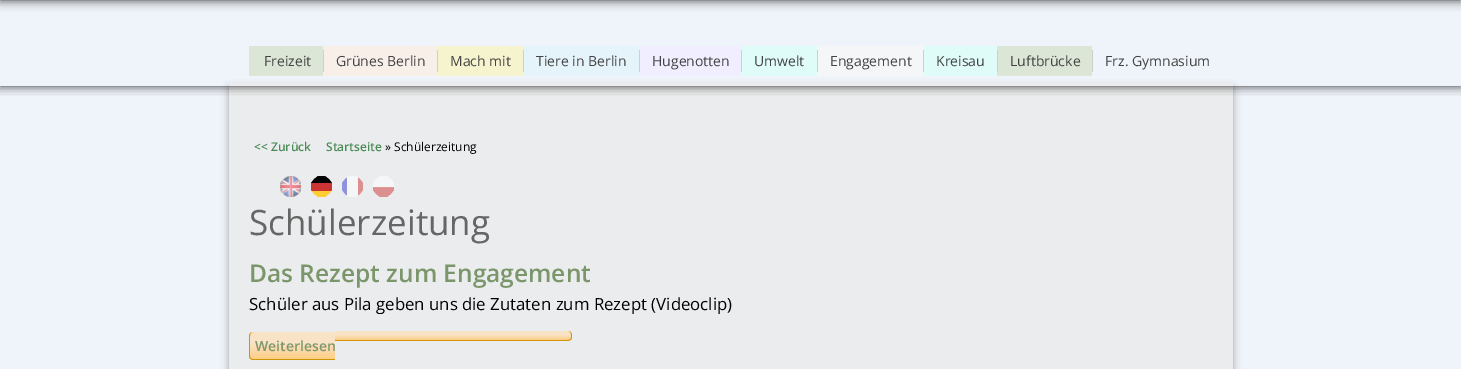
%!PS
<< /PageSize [1461 369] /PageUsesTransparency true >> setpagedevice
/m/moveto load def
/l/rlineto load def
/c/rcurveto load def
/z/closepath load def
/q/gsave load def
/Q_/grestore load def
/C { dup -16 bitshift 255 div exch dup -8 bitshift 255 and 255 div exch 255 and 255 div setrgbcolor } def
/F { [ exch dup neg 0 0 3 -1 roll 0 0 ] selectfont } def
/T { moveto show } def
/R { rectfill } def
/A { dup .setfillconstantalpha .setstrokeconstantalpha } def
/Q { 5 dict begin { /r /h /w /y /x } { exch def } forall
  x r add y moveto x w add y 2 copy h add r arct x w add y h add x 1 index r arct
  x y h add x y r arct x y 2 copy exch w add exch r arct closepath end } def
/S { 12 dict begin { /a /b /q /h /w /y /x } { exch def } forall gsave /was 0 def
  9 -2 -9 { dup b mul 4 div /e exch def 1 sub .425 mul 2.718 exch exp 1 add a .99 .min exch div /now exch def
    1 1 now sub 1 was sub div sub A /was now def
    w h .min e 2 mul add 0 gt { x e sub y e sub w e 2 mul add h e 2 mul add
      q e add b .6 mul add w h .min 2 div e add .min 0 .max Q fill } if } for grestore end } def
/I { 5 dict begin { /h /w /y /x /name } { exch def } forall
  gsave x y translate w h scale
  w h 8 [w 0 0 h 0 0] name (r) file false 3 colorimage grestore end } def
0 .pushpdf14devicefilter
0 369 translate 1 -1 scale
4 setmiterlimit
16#EFF3FA C
0 0 1461 369 R
16#000000 C
0 -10 1461 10 0 5 .8 S
229 88 1004 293 0 4 .33 S
16#EBECED C
229 82 1004 287 R
q
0 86 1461 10 rectclip
16#000000 C
0 -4 1461 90 0 5 .8 S
Q_
16#DBE6D6 C
249 46 74 30 R
/OpenSans-Regular 14 F
16#444444 C
(Freizeit) 264 66 T
16#F9EFE9 C
323 46 114 30 R
16#CFCFCF C
323 50 1 22 R
16#444444 C
(Grünes Berlin) 336 66 T
16#F6F4CE C
437 46 86 30 R
16#CFCFCF C
437 50 1 22 R
16#444444 C
(Mach mit) 450 66 T
16#E5F3FA C
523 46 116 30 R
16#CFCFCF C
523 50 1 22 R
16#444444 C
(Tiere in Berlin) 536 66 T
16#F1EEFF C
639 46 102 30 R
16#CFCFCF C
639 50 1 22 R
16#444444 C
(Hugenotten) 652 66 T
16#DFFCF8 C
741 46 76 30 R
16#CFCFCF C
741 50 1 22 R
16#444444 C
(Umwelt) 754 66 T
16#F4F6F8 C
817 46 106 30 R
16#CFCFCF C
817 50 1 22 R
16#444444 C
(Engagement) 830 66 T
16#DFFCF8 C
923 46 74 30 R
16#CFCFCF C
923 50 1 22 R
16#444444 C
(Kreisau) 936 66 T
16#DBE6D6 C
997 46 95 30 R
16#CFCFCF C
997 50 1 22 R
16#444444 C
(Luftbrücke) 1010 66 T
16#CFCFCF C
1092 50 1 22 R
16#444444 C
(Frz. Gymnasium) 1105 66 T
/OpenSans-SemiBold 12 F
16#4A8B58 C
(<< Zurück) 254 151 T
(Startseite) 326 151 T
/OpenSans-Regular 12 F
16#000000 C
(» Schülerzeitung) 385 151 T
(1.rgb) 280 176 21 21 I
(2.rgb) 311 176 21 21 I
(3.rgb) 342 176 21 21 I
(4.rgb) 373 176 21 21 I
/OpenSans-Regular 35 F
16#666666 C
(Schülerzeitung) 249 235 T
/OpenSans-SemiBold 24.5 F
16#7A966A C
(Das Rezept zum Engagement) 249 282 T
/OpenSans-Regular 16.8 F
16#000000 C
(Schüler aus Pila geben uns die Zutaten zum Rezept \(Videoclip\)) 249 310 T
q
253 332 m 82 0 l 0 28 l -82 0 l -2 0 -4 -2 -4 -4 c 0 -20 l 0 -2 2 -4 4 -4 c z clip newpath
q 253 332 m 82 0 l 0 27 l -86 0 l 0 -23 l 0 -2 2 -4 4 -4 c z clip newpath
<< /ShadingType 2 /ColorSpace /DeviceRGB /Coords [293 332 293 359] /Extend [true true] /Function << /FunctionType 3 /Domain [0 1] /Functions [<< /FunctionType 2 /Domain [0 1] /C0 [.976 .89 .776] /C1 [.976 .89 .776] /N 1 >> << /FunctionType 2 /Domain [0 1] /C0 [.976 .89 .776] /C1 [.996 .808 .522] /N 1 >>] /Bounds [.4] /Encode [0 1 0 1] >> >> shfill Q_
Q_
16#D19405 C
253 332 m 82 0 l 0 28 l -82 0 l -2 0 -4 -2 -4 -4 c 0 -20 l 0 -2 2 -4 4 -4 c z 253 332 m 82 0 l 0 27 l -82 0 l -2 0 -3 -1 -3 -3 c 0 -20 l 0 -2 1 -4 3 -4 c z eofill
/OpenSans-SemiBold 14 F
16#7A966A C
(Weiterlesen) 255 351 T
q
335 331 m 233 0 l 2 0 4 2 4 4 c 0 2 l 0 2 -2 4 -4 4 c -233 0 l z clip newpath
q 335 331 m 233 0 l 2 0 4 2 4 4 c 0 5 l -237 0 l z clip newpath
<< /ShadingType 2 /ColorSpace /DeviceRGB /Coords [453 331 453 340] /Extend [true true] /Function << /FunctionType 3 /Domain [0 1] /Functions [<< /FunctionType 2 /Domain [0 1] /C0 [.976 .89 .776] /C1 [.976 .89 .776] /N 1 >> << /FunctionType 2 /Domain [0 1] /C0 [.976 .89 .776] /C1 [.996 .808 .522] /N 1 >>] /Bounds [.4] /Encode [0 1 0 1] >> >> shfill Q_
Q_
16#D19405 C
335 331 m 233 0 l 2 0 4 2 4 4 c 0 2 l 0 2 -2 4 -4 4 c -233 0 l z 335 331 m 233 0 l 2 0 3 2 3 4 c 0 2 l 0 2 -1 3 -3 3 c -233 0 l z eofill
.poppdf14devicefilter showpage
